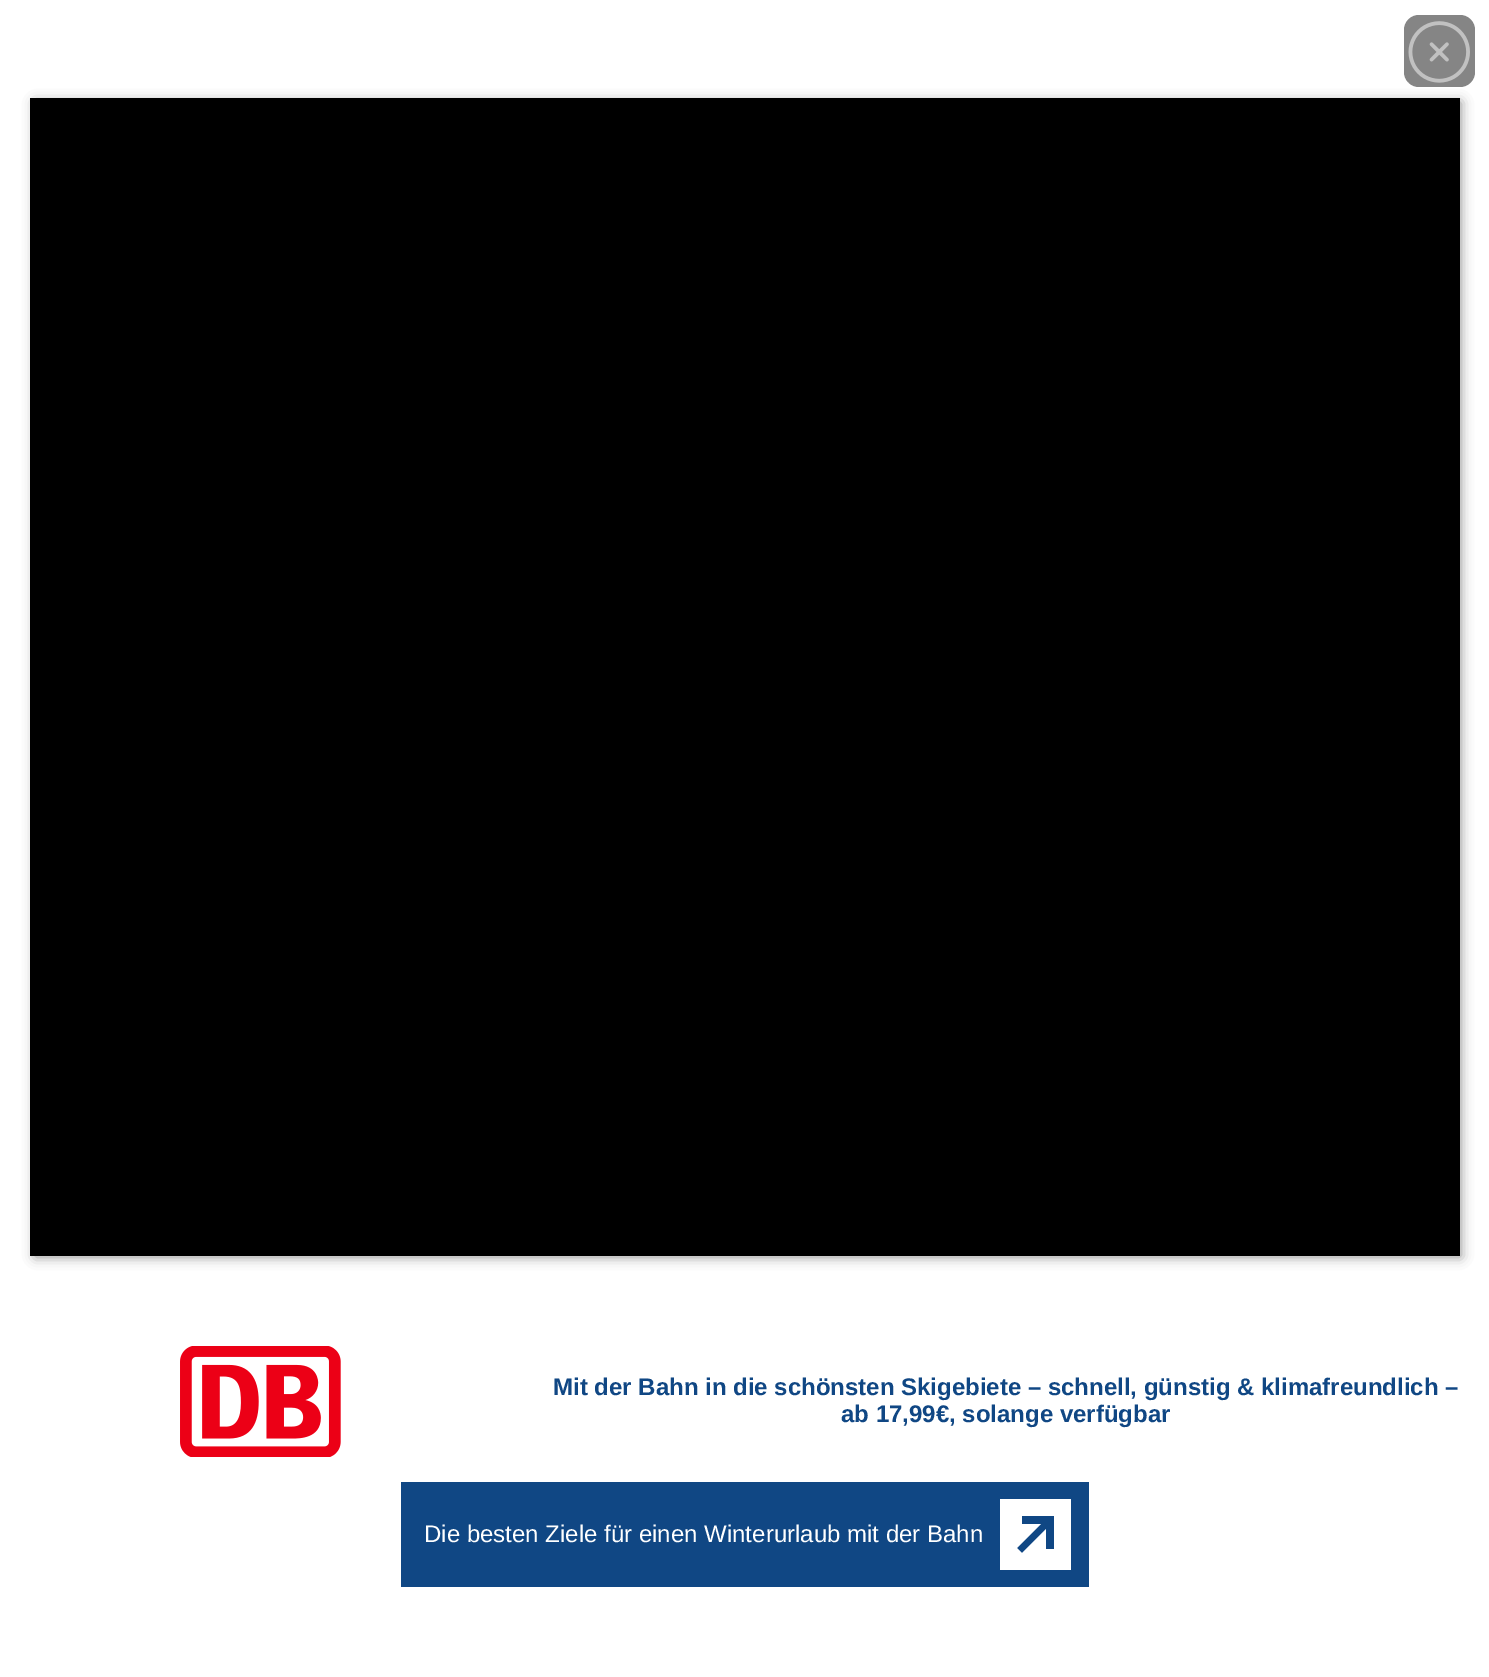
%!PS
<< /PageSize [1489 1677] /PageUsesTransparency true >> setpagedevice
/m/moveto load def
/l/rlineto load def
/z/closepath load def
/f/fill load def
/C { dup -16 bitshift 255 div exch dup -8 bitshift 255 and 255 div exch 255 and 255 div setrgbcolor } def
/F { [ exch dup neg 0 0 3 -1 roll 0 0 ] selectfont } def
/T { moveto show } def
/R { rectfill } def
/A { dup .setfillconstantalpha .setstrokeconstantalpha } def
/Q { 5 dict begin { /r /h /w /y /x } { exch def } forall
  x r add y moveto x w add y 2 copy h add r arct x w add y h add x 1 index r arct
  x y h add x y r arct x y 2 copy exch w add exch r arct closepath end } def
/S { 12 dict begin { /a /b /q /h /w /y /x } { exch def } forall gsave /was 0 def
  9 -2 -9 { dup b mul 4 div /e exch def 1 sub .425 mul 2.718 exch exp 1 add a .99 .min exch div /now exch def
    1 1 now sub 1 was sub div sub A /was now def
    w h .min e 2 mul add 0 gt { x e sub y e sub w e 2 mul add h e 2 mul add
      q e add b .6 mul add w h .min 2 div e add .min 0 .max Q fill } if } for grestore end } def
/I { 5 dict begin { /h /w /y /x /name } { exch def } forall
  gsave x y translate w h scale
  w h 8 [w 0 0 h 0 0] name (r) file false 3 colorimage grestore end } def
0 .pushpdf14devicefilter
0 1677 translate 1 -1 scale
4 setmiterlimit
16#FFFFFF C
0 0 1489 1677 R
16#000000 C
35 102 1426 1155 0 6 .43 S
16#858585 C
1404 15 71 72 15 Q f
(1.rgb) 1408 21 62 62 I
16#000000 C
30 98 1430 1158 R
(2.rgb) 180 1346 161 111 I
/LiberationSans-Bold 24 F
16#104784 C
(Mit der Bahn in die schönsten Skigebiete – schnell, günstig & klimafreundlich –) 553 1395 T
(ab 17,99€, solange verfügbar) 841 1422 T
401 1482 688 105 R
/LiberationSans-Regular 24 F
16#FFFFFF C
(Die besten Ziele für einen Winterurlaub mit der Bahn) 424 1542 T
1000 1499 m 71 0 l -71 0 l 71 0 l 0 71 l -71 0 l z 1050 1516 m -28 0 l 0 8 l 19 0 l -24 24 l 5 5 l 24 -24 l 0 20 l 8 0 l 0 -33 l z f
.poppdf14devicefilter showpage
